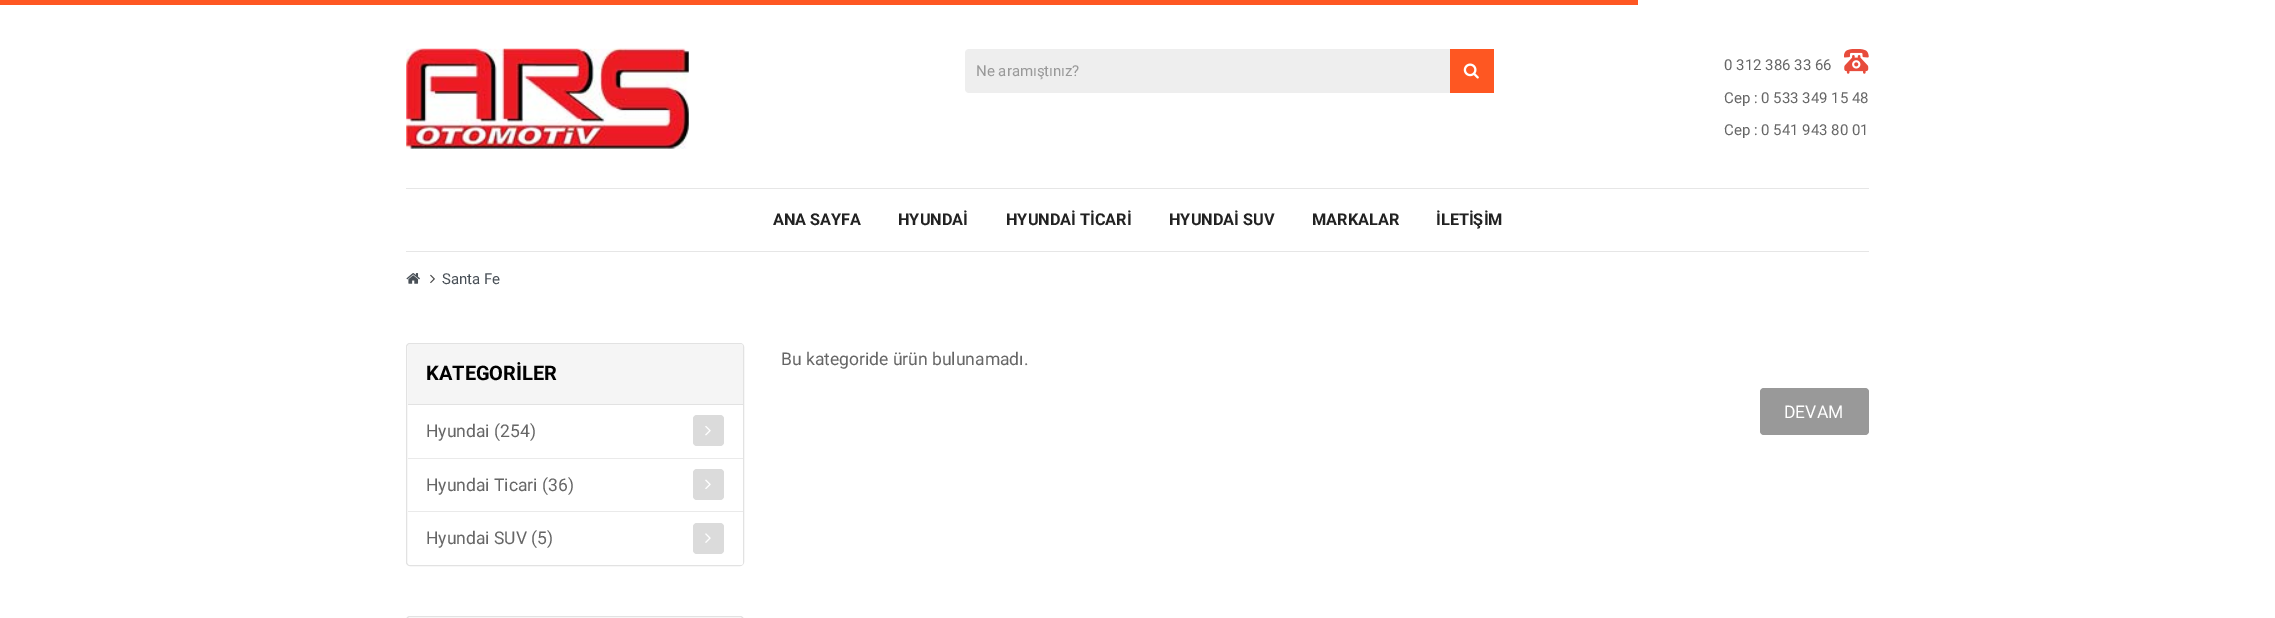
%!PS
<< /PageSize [2275 618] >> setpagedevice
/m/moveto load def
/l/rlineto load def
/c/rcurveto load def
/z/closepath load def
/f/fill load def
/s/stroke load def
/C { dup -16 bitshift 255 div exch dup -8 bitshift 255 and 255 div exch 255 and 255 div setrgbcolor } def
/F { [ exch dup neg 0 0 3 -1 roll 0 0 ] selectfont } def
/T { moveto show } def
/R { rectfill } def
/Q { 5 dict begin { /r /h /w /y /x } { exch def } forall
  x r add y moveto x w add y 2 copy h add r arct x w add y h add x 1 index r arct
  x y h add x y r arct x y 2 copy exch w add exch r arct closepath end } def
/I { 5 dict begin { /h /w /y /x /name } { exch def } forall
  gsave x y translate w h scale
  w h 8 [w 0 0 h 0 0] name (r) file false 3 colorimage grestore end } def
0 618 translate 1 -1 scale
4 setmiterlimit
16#FFFFFF C
0 0 2275 618 R
16#FE5722 C
0 0 1638 5 R
(1.rgb) 406 48 283 101 I
16#EEEEEE C
969 49 m 482 0 l 0 44 l -482 0 l -2 0 -4 -2 -4 -4 c 0 -36 l 0 -2 2 -4 4 -4 c z f
/Roboto-Regular 15 F
16#999999 C
(Ne aramıştınız?) 976 76 T
16#FE5722 C
1450 49 44 44 R
(2.rgb) 1463 63 16 16 I
(3.rgb) 1844 49 25 25 I
16#666666 C
(0 312 386 33 66) 1724 70 T
(Cep : 0 533 349 15 48) 1724 103 T
(Cep : 0 541 943 80 01) 1724 135 T
16#E6E6E6 C
406 188 1463 1 R
406 251 1463 1 R
/Roboto-Bold 16.25 F
16#222222 C
(ANA SAYFA) 773 225 T
(HYUNDAİ) 898 225 T
(HYUNDAİ TİCARİ) 1006 225 T
(HYUNDAİ SUV) 1169 225 T
(MARKALAR) 1312 225 T
(İLETİŞİM) 1436 225 T
(4.rgb) 406 273 14 11 I
(5.rgb) 430 274 5 10 I
/Roboto-Regular 15 F
16#495057 C
(Santa Fe) 442 284 T
16#E2E2E2 C
406.5 343.5 337 222 3.5 Q s
16#F5F5F5 C
410.5 344 m 330 0 l 1.5 0 2.5 1 2.5 2.5 c 0 58.5 l -335 0 l 0 -58.5 l 0 -1.5 1 -2.5 2.5 -2.5 c z f
16#E2E2E2 C
408 404 335 1 R
/Roboto-Bold 20 F
16#000000 C
(KATEGORİLER) 426 380 T
16#EAEAEA C
408 458 335 1 R
/Roboto-Regular 17.5 F
16#666666 C
(Hyundai \(254\)) 426 437 T
16#DBDBDB C
693 415 31 31 4 Q f
(6.rgb) 705 426 6 10 I
16#EAEAEA C
408 511 335 1 R
16#666666 C
(Hyundai Ticari \(36\)) 426 491 T
16#DBDBDB C
693 469 31 31 4 Q f
(7.rgb) 705 479 6 10 I
16#FFFFFF C
408 513 m 335 0 l 0 49.5 l 0 1.5 -1 2.5 -2.5 2.5 c -330 0 l -1.5 0 -2.5 -1 -2.5 -2.5 c z f
16#666666 C
(Hyundai SUV \(5\)) 426 544 T
16#DBDBDB C
693 523 31 31 4 Q f
(8.rgb) 705 533 6 10 I
16#E2E2E2 C
406.5 616.5 337 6 3.5 Q s
16#666666 C
(Bu kategoride ürün bulunamadı.) 781 365 T
16#999999 C
1760 388 109 47 4 Q f
16#FFFFFF C
(DEVAM) 1784 418 T
showpage
